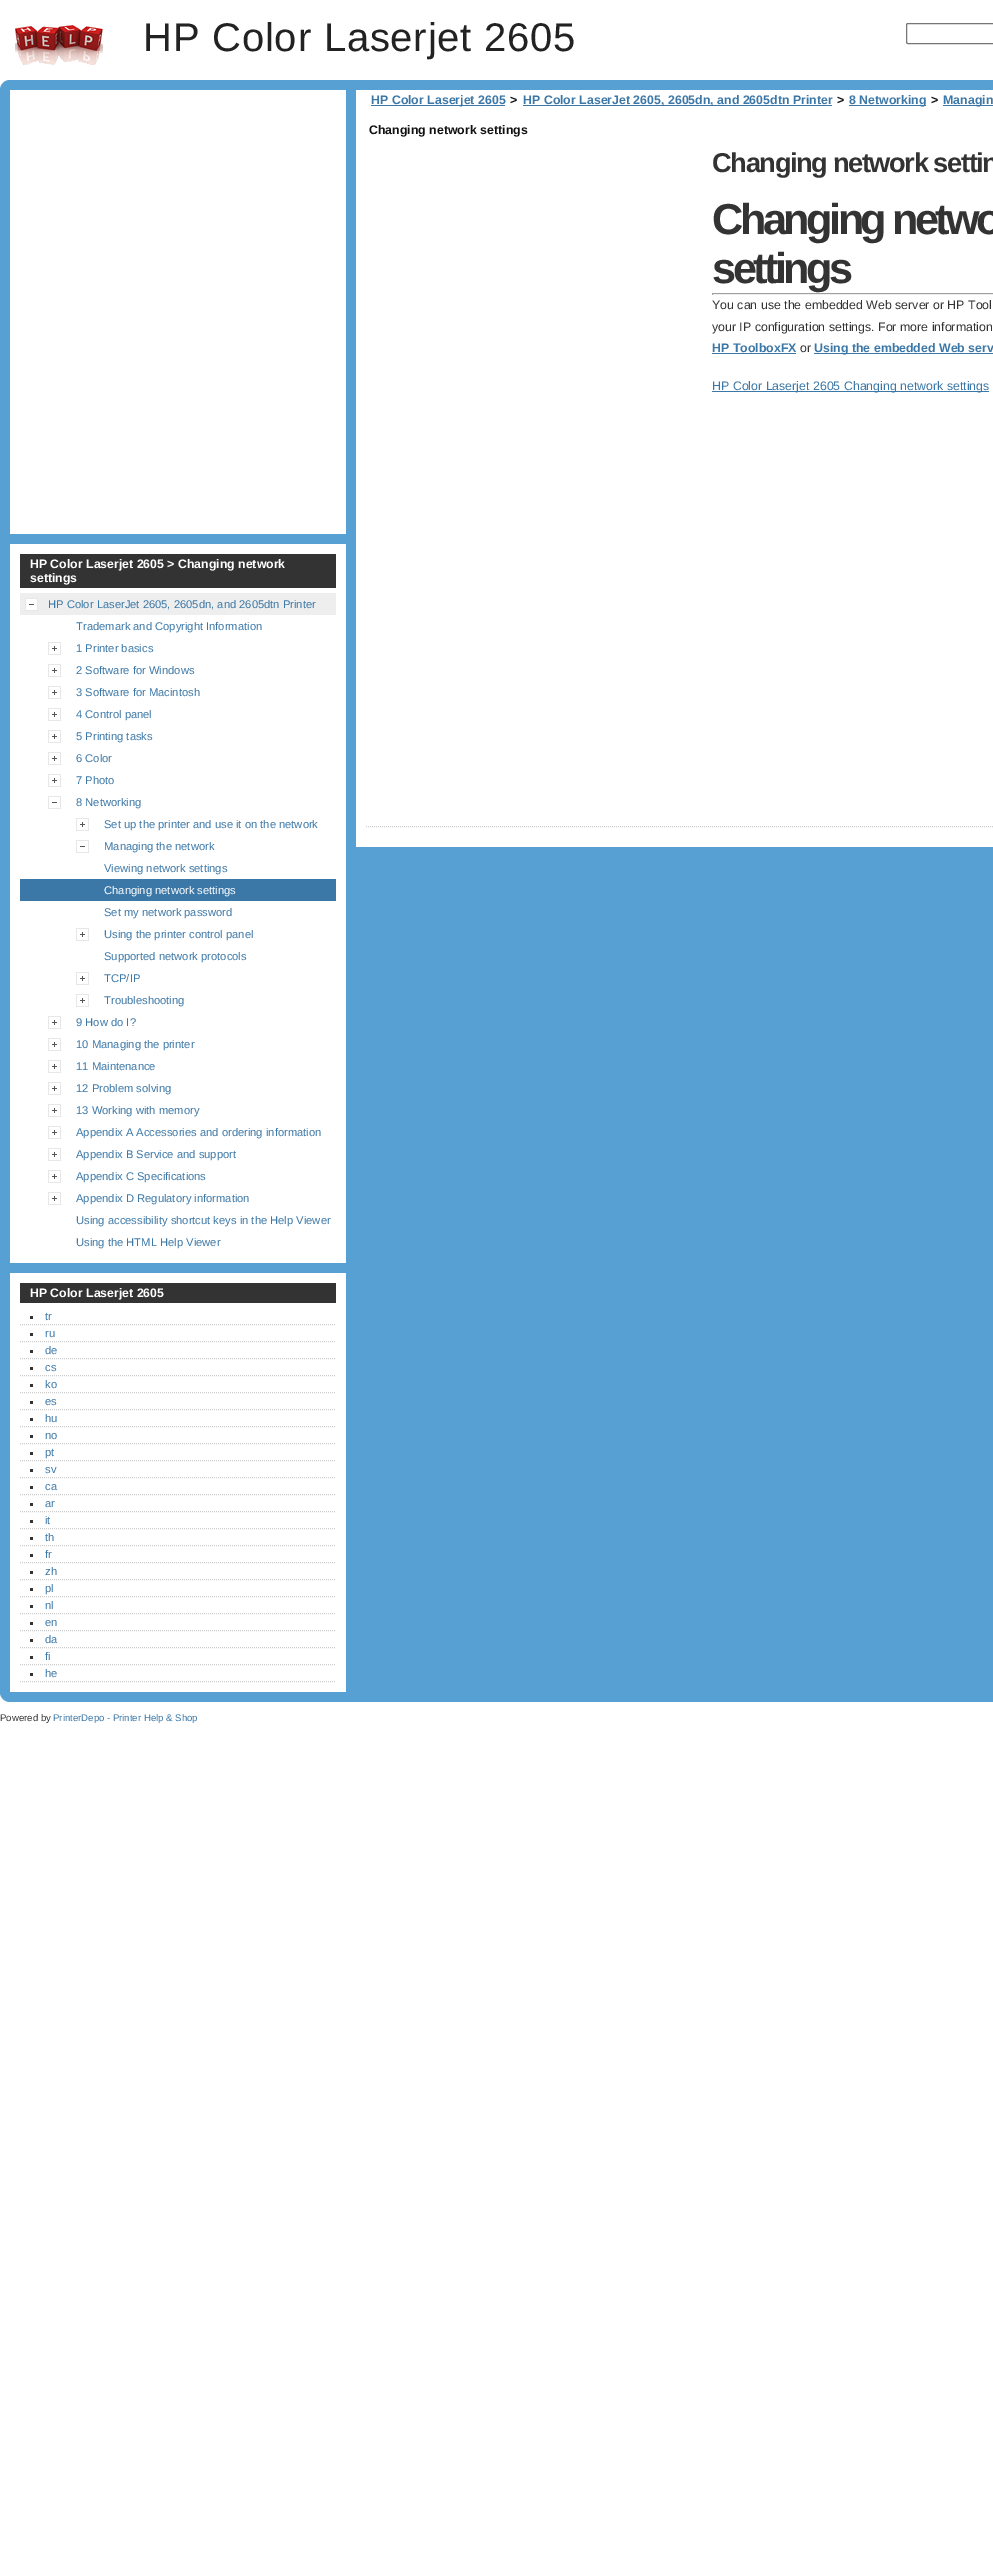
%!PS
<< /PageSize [993 2555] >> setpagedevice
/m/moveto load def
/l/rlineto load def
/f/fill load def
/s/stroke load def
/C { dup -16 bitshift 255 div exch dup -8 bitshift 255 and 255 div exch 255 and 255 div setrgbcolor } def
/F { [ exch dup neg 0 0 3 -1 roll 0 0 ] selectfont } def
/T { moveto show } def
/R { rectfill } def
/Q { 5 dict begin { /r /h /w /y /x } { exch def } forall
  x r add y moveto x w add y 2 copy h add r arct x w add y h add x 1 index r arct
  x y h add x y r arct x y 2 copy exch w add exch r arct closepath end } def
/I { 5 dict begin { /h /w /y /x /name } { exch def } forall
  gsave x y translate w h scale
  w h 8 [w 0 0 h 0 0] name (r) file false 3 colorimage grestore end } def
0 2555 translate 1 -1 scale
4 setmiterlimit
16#FFFFFF C
0 0 993 2555 R
(1.rgb) 15 25 88 40 I
/LiberationSans-Regular 40 F
16#222222 C
143 51 m .8 0 (HP Color Laserjet 2605) ashow
16#767676 C
906.5 23.5 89 20 1.5 Q s
16#56A0D3 C
0 80 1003 1622 10 Q f
16#FFFFFF C
356 90 637 757 R
16#3C78A7 C
371 105 134 1 R
/LiberationSans-Bold 12.35 F
(HP Color Laserjet 2605) 371 104 T
16#111111 C
(>) 510 104 T
16#3C78A7 C
523 105 309 1 R
(HP Color LaserJet 2605, 2605dn, and 2605dtn Printer) 523 104 T
16#111111 C
(>) 837 104 T
16#3C78A7 C
849 105 77 1 R
(8 Networking) 849 104 T
16#111111 C
(>) 931 104 T
16#3C78A7 C
943 105 50 1 R
(Managin) 943 104 T
16#111111 C
(Changing network settings) 369 134 T
/LiberationSans-Bold 27.25 F
16#333333 C
712 172 m -1.4 0 (Changing network settin) ashow
16#CCCCCC C
[1 1] 0 setdash
366 826.5 m 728 0 l s
/LiberationSans-Bold 43.25 F
16#333333 C
712 234 m -3.5 0 (Changing netwo) ashow
712 283 m -3.5 0 (settings) ashow
16#9F9F9F C
712 293 281 1 R
16#EEEEEE C
712 294 281 1 R
16#9F9F9F C
712 293 1 2 R
/LiberationSans-Regular 12.35 F
16#333333 C
(You can use the embedded Web server or HP Tool) 712 309 T
(your IP configuration settings. For more information) 712 331 T
/LiberationSans-Bold 12.35 F
16#3C78A7 C
(HP ToolboxFX) 712 352 T
712 353 84 1 R
/LiberationSans-Regular 12.35 F
16#333333 C
(or) 800 352 T
16#3C78A7 C
814 353 179 1 R
/LiberationSans-Bold 12.35 F
(Using the embedded Web serv) 814 352 T
712 391 277 1 R
/LiberationSans-Regular 12.35 F
(HP Color Laserjet 2605 Changing network settings) 712 390 T
16#FFFFFF C
10 90 336 444 R
10 544 336 719 R
16#333333 C
20 554 316 34 R
/LiberationSans-Bold 12.3 F
16#FFFFFF C
(HP Color Laserjet 2605 > Changing network) 30 568 T
(settings) 30 582 T
16#EEEEEE C
20 593 316 22 R
(2.rgb) 25 598 13 13 I
/LiberationSans-Regular 11.2 F
16#3C78A7 C
(HP Color LaserJet 2605, 2605dn, and 2605dtn Printer) 48 608 T
(Trademark and Copyright Information) 76 630 T
(3.rgb) 48 642 13 13 I
(1 Printer basics) 76 652 T
(3.rgb) 48 664 13 13 I
(2 Software for Windows) 76 674 T
(3.rgb) 48 686 13 13 I
(3 Software for Macintosh) 76 696 T
(3.rgb) 48 708 13 13 I
(4 Control panel) 76 718 T
(3.rgb) 48 730 13 13 I
(5 Printing tasks) 76 740 T
(3.rgb) 48 752 13 13 I
(6 Color) 76 762 T
(3.rgb) 48 774 13 13 I
(7 Photo) 76 784 T
(2.rgb) 48 796 13 13 I
(8 Networking) 76 806 T
(3.rgb) 76 818 13 13 I
(Set up the printer and use it on the network) 104 828 T
(2.rgb) 76 840 13 13 I
(Managing the network) 104 850 T
(Viewing network settings) 104 872 T
20 879 316 22 R
16#FFFFFF C
(Changing network settings) 104 894 T
16#3C78A7 C
(Set my network password) 104 916 T
(3.rgb) 76 928 13 13 I
(Using the printer control panel) 104 938 T
(Supported network protocols) 104 960 T
(3.rgb) 76 972 13 13 I
(TCP/IP) 104 982 T
(3.rgb) 76 994 13 13 I
(Troubleshooting) 104 1004 T
(3.rgb) 48 1016 13 13 I
(9 How do I?) 76 1026 T
(3.rgb) 48 1038 13 13 I
(10 Managing the printer) 76 1048 T
(3.rgb) 48 1060 13 13 I
(11 Maintenance) 76 1070 T
(3.rgb) 48 1082 13 13 I
(12 Problem solving) 76 1092 T
(3.rgb) 48 1104 13 13 I
(13 Working with memory) 76 1114 T
(3.rgb) 48 1126 13 13 I
(Appendix A Accessories and ordering information) 76 1136 T
(3.rgb) 48 1148 13 13 I
(Appendix B Service and support) 76 1158 T
(3.rgb) 48 1170 13 13 I
(Appendix C Specifications) 76 1180 T
(3.rgb) 48 1192 13 13 I
(Appendix D Regulatory information) 76 1202 T
(Using accessibility shortcut keys in the Help Viewer) 76 1224 T
(Using the HTML Help Viewer) 76 1246 T
16#FFFFFF C
10 1273 336 419 R
16#333333 C
20 1283 316 20 R
/LiberationSans-Bold 12.3 F
16#FFFFFF C
(HP Color Laserjet 2605) 30 1297 T
16#CCCCCC C
20 1324.5 m 316 0 l s
16#333333 C
30 1316 3 3 R
/LiberationSans-Regular 11.2 F
16#3C78A7 C
(tr) 45 1320 T
16#CCCCCC C
20 1341.5 m 316 0 l s
16#333333 C
30 1333 3 3 R
16#3C78A7 C
(ru) 45 1337 T
16#CCCCCC C
20 1358.5 m 316 0 l s
16#333333 C
30 1350 3 3 R
16#3C78A7 C
(de) 45 1354 T
16#CCCCCC C
20 1375.5 m 316 0 l s
16#333333 C
30 1367 3 3 R
16#3C78A7 C
(cs) 45 1371 T
16#CCCCCC C
20 1392.5 m 316 0 l s
16#333333 C
30 1384 3 3 R
16#3C78A7 C
(ko) 45 1388 T
16#CCCCCC C
20 1409.5 m 316 0 l s
16#333333 C
30 1401 3 3 R
16#3C78A7 C
(es) 45 1405 T
16#CCCCCC C
20 1426.5 m 316 0 l s
16#333333 C
30 1418 3 3 R
16#3C78A7 C
(hu) 45 1422 T
16#CCCCCC C
20 1443.5 m 316 0 l s
16#333333 C
30 1435 3 3 R
16#3C78A7 C
(no) 45 1439 T
16#CCCCCC C
20 1460.5 m 316 0 l s
16#333333 C
30 1452 3 3 R
16#3C78A7 C
(pt) 45 1456 T
16#CCCCCC C
20 1477.5 m 316 0 l s
16#333333 C
30 1469 3 3 R
16#3C78A7 C
(sv) 45 1473 T
16#CCCCCC C
20 1494.5 m 316 0 l s
16#333333 C
30 1486 3 3 R
16#3C78A7 C
(ca) 45 1490 T
16#CCCCCC C
20 1511.5 m 316 0 l s
16#333333 C
30 1503 3 3 R
16#3C78A7 C
(ar) 45 1507 T
16#CCCCCC C
20 1528.5 m 316 0 l s
16#333333 C
30 1520 3 3 R
16#3C78A7 C
(it) 45 1524 T
16#CCCCCC C
20 1545.5 m 316 0 l s
16#333333 C
30 1537 3 3 R
16#3C78A7 C
(th) 45 1541 T
16#CCCCCC C
20 1562.5 m 316 0 l s
16#333333 C
30 1554 3 3 R
16#3C78A7 C
(fr) 45 1558 T
16#CCCCCC C
20 1579.5 m 316 0 l s
16#333333 C
30 1571 3 3 R
16#3C78A7 C
(zh) 45 1575 T
16#CCCCCC C
20 1596.5 m 316 0 l s
16#333333 C
30 1588 3 3 R
16#3C78A7 C
(pl) 45 1592 T
16#CCCCCC C
20 1613.5 m 316 0 l s
16#333333 C
30 1605 3 3 R
16#3C78A7 C
(nl) 45 1609 T
16#CCCCCC C
20 1630.5 m 316 0 l s
16#333333 C
30 1622 3 3 R
16#3C78A7 C
(en) 45 1626 T
16#CCCCCC C
20 1647.5 m 316 0 l s
16#333333 C
30 1639 3 3 R
16#3C78A7 C
(da) 45 1643 T
16#CCCCCC C
20 1664.5 m 316 0 l s
16#333333 C
30 1656 3 3 R
16#3C78A7 C
(fi) 45 1660 T
16#CCCCCC C
20 1681.5 m 316 0 l s
16#333333 C
30 1673 3 3 R
16#3C78A7 C
(he) 45 1677 T
/LiberationSans-Regular 9.6 F
16#333333 C
(Powered by) 0 1721 T
16#3C78A7 C
(PrinterDepo - Printer Help & Shop) 53 1721 T
showpage
